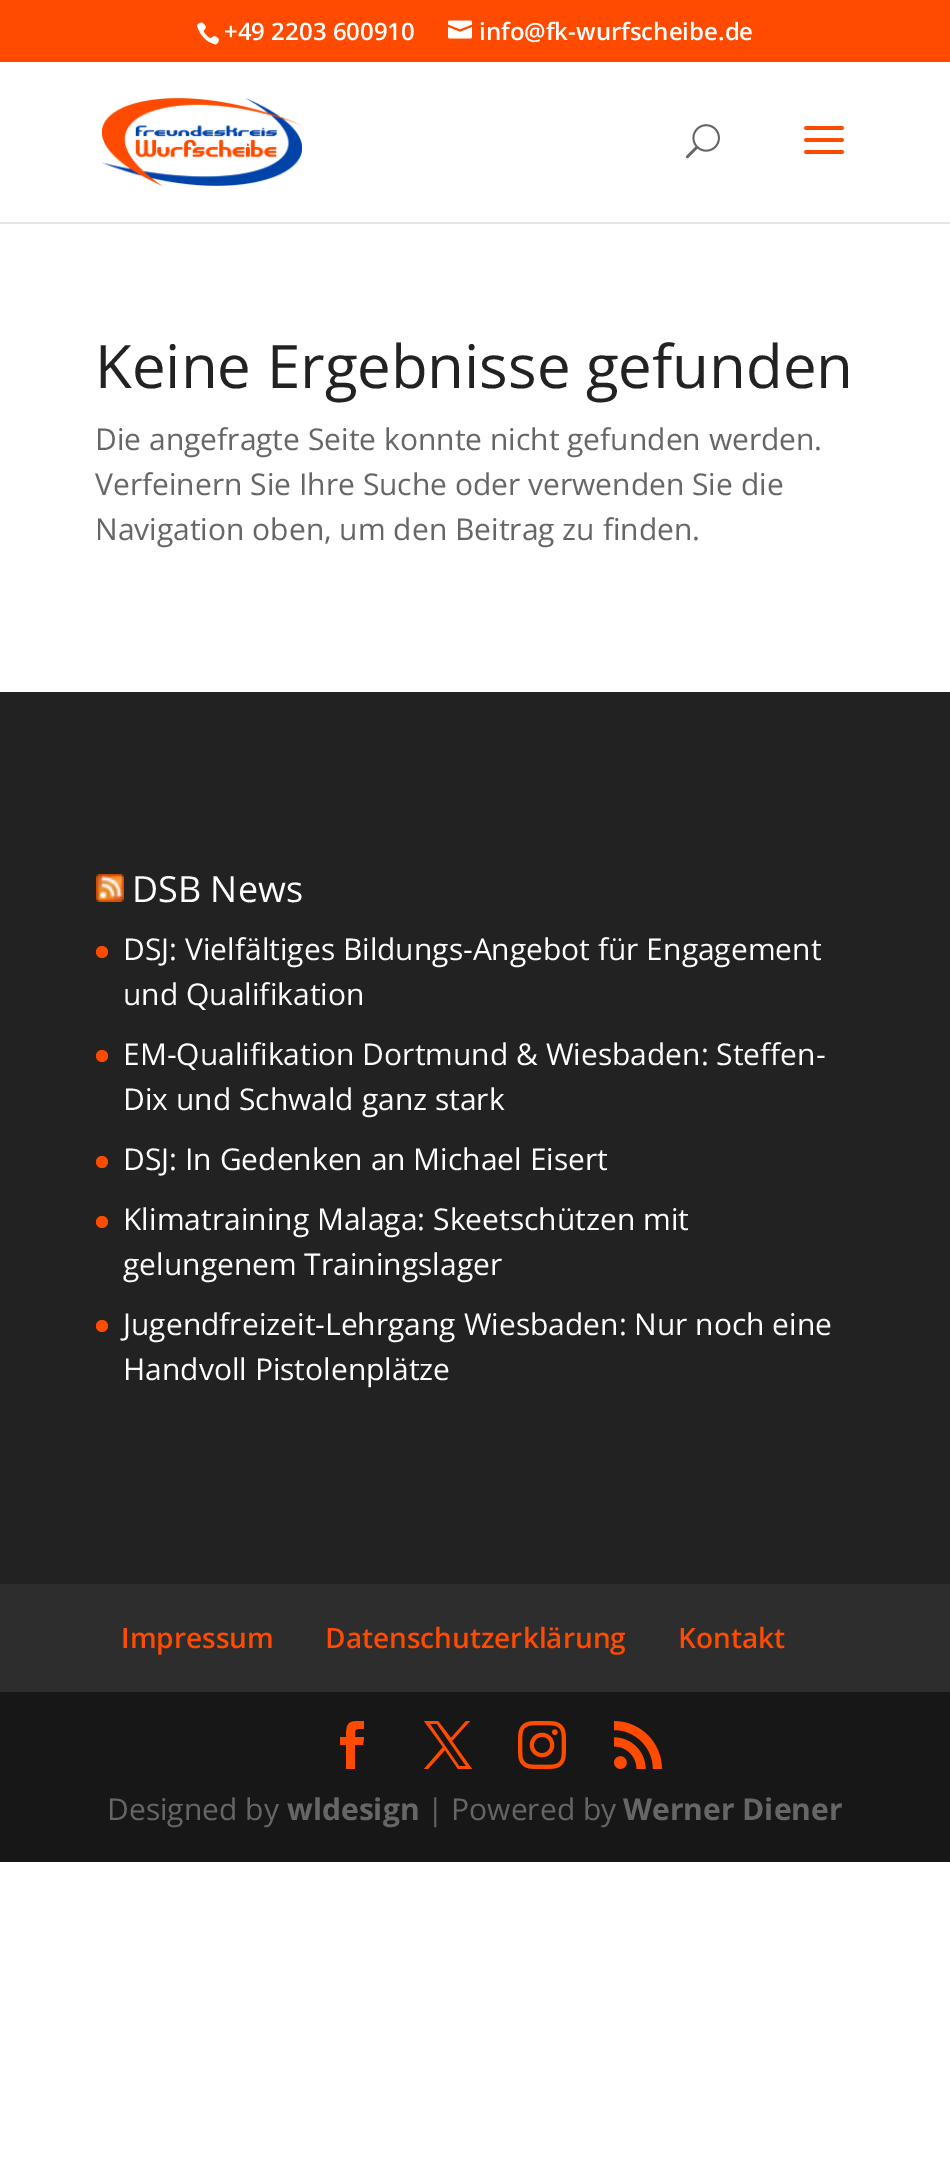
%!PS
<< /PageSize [950 2174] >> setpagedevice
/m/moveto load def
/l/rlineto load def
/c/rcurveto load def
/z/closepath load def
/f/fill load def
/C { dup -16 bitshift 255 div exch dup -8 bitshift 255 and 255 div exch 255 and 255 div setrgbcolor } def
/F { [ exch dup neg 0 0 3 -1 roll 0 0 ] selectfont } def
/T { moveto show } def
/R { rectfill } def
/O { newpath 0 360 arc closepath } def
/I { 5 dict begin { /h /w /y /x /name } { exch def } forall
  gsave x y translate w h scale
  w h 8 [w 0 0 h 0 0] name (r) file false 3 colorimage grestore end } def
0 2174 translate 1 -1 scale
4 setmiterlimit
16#FFFFFF C
0 0 950 2174 R
16#FF4B00 C
0 0 950 62 R
(1.rgb) 197 22 22 23 I
/OpenSans-SemiBold 24 F
16#FFFFFF C
(+49 2203 600910) 224 40 T
(2.rgb) 448 20 24 19 I
(info@fk-wurfscheibe.de) 479 40 T
16#E6E6E6 C
0 222 950 2 R
(3.rgb) 102 98 200 88 I
(4.rgb) 685 124 35 35 I
(5.rgb) 804 126 40 28 I
/OpenSans-Regular 60 F
16#222222 C
(Keine Ergebnisse gefunden) 95 388 T
/OpenSans-Regular 30 F
16#666666 C
(Die angefragte Seite konnte nicht gefunden werden.) 95 450 T
(Verfeinern Sie Ihre Suche oder verwenden Sie die) 95 495 T
(Navigation oben, um den Beitrag zu finden.) 95 540 T
16#222222 C
0 692 950 892 R
(6.rgb) 96 874 28 28 I
/OpenSans-Regular 36 F
16#FFFFFF C
(DSB News) 132 902 T
16#FF4B00 C
102 952 6 O f
/OpenSans-Regular 30 F
16#FFFFFF C
(DSJ: Vielfältiges Bildungs-Angebot für Engagement) 123 960 T
(und Qualifikation) 123 1005 T
16#FF4B00 C
102 1056 6 O f
16#FFFFFF C
(EM-Qualifikation Dortmund & Wiesbaden: Steffen-) 123 1065 T
(Dix und Schwald ganz stark) 123 1110 T
16#FF4B00 C
102 1162 6 O f
16#FFFFFF C
(DSJ: In Gedenken an Michael Eisert) 123 1170 T
16#FF4B00 C
102 1222 6 O f
16#FFFFFF C
(Klimatraining Malaga: Skeetschützen mit) 123 1230 T
(gelungenem Trainingslager) 123 1275 T
16#FF4B00 C
102 1326 6 O f
16#FFFFFF C
(Jugendfreizeit-Lehrgang Wiesbaden: Nur noch eine) 123 1335 T
(Handvoll Pistolenplätze) 123 1380 T
16#2D2D2D C
0 1584 950 108 R
/OpenSans-SemiBold 28 F
16#FF4B00 C
(Impressum) 121 1648 T
(Datenschutzerklärung) 325 1648 T
(Kontakt) 678 1648 T
16#171717 C
0 1692 950 170 R
16#FF4B00 C
346 1769 m 9 0 l 0 -24 l 8 0 l 1 -8 l -9 0 l 0 -9 0 -8 9 -8 c 0 -8 l -15 0 -18 0 -18 16 c -6 0 l 0 8 l 6 0 l z f
424 1721 m 19 26 l -19 22 l 4 0 l 17 -19 l 13 19 l 14 0 l -20 -28 l 18 -20 l -4 0 l -15 17 l -13 -17 l z 430 1724 m 7 0 l 29 42 l -7 0 l z f
(7.rgb) 518 1721 48 48 I
(8.rgb) 614 1721 48 48 I
/OpenSans-Regular 30 F
16#666666 C
(Designed by) 107 1820 T
/OpenSans-Bold 30 F
(wldesign) 287 1820 T
/OpenSans-Regular 30 F
(| Powered by) 427 1820 T
/OpenSans-Bold 30 F
(Werner Diener) 623 1820 T
showpage
